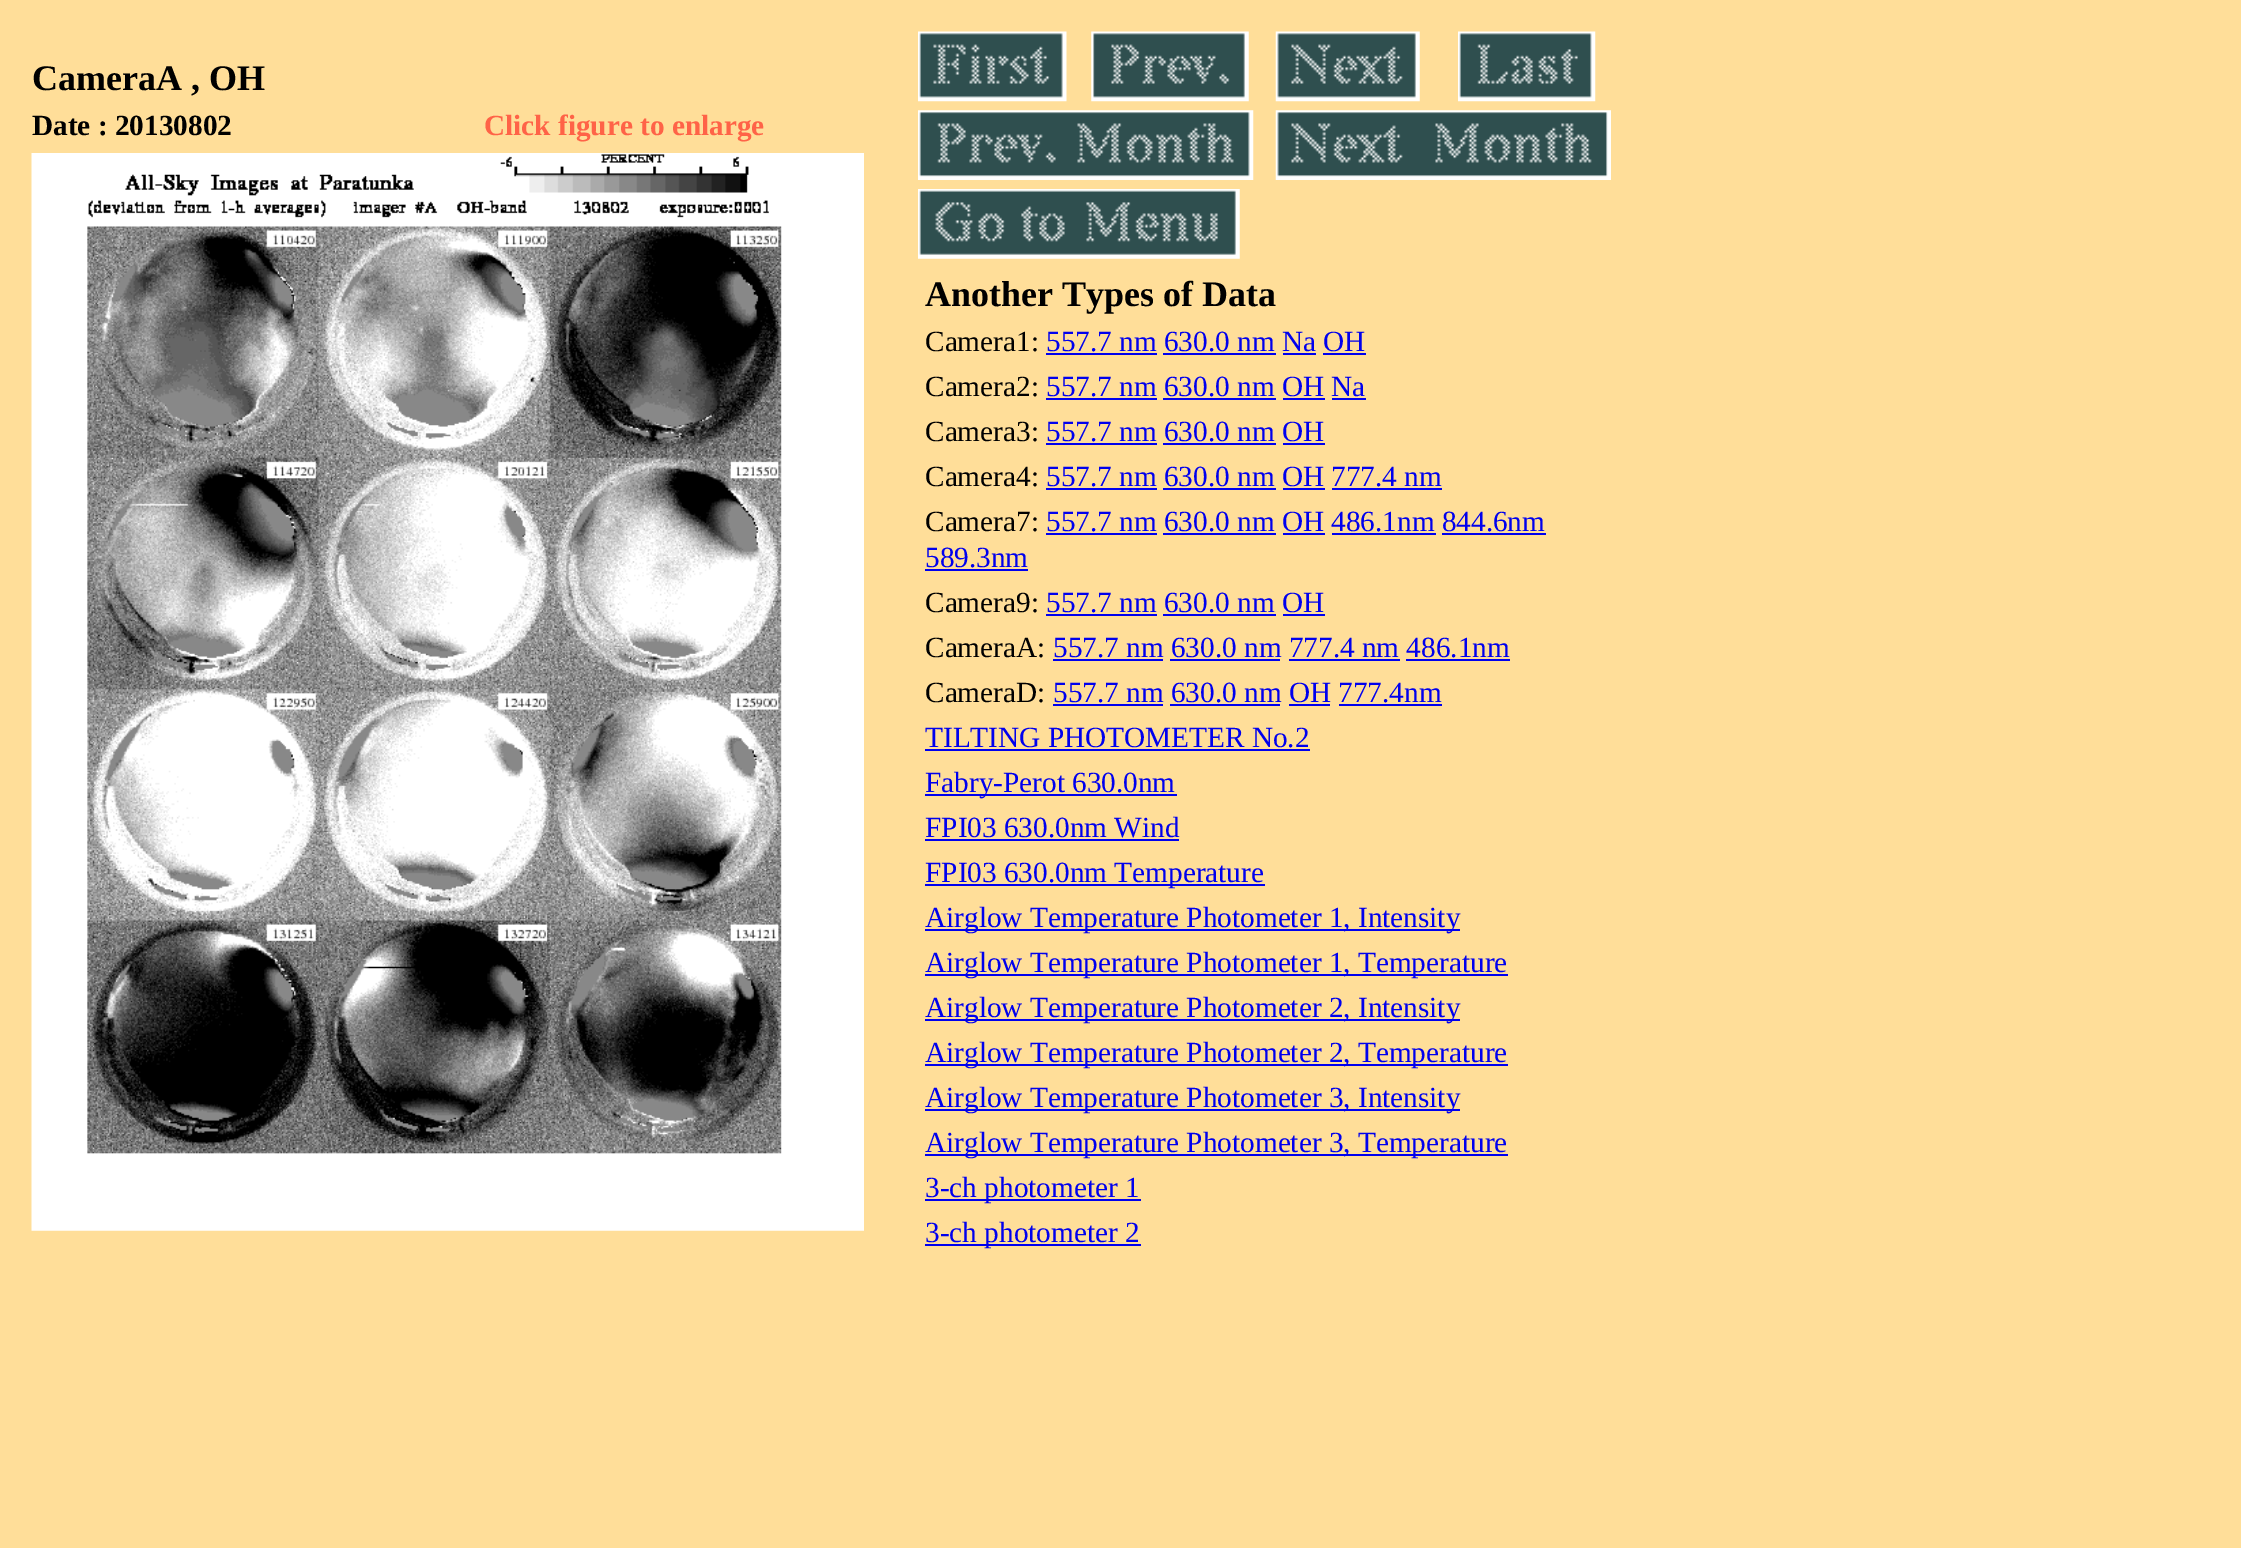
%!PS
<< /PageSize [2241 1548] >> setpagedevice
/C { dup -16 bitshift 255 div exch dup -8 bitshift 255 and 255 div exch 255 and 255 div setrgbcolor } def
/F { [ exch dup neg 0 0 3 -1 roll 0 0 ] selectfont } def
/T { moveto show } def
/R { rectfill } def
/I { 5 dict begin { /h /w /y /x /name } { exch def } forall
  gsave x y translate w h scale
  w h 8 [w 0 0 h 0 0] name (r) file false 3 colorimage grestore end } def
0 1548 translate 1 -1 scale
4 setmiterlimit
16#FFDE99 C
0 0 2241 1548 R
/LiberationSerif-Bold 36 F
16#000000 C
(CameraA , OH) 32 90 T
/LiberationSerif-Bold 29.25 F
(Date : 20130802) 32 135 T
16#FF6347 C
(Click figure to enlarge) 484 135 T
(1.rgb) 31 153 833 1078 I
(2.rgb) 918 31 149 71 I
(3.rgb) 1091 31 158 71 I
(4.rgb) 1275 31 145 71 I
(5.rgb) 1458 31 138 71 I
(6.rgb) 918 110 336 70 I
(7.rgb) 1275 110 336 70 I
(8.rgb) 918 189 322 70 I
/LiberationSerif-Bold 36 F
16#000000 C
(Another Types of Data) 925 306 T
/LiberationSerif-Regular 29.25 F
(Camera1:) 925 351 T
16#0000EE C
(557.7 nm 630.0 nm Na OH) 1046 351 T
1046 353 111 2 R
1163 353 113 2 R
1283 353 33 2 R
1323 353 43 2 R
16#000000 C
(Camera2:) 925 396 T
16#0000EE C
(557.7 nm 630.0 nm OH Na) 1046 396 T
1046 398 111 2 R
1163 398 113 2 R
1283 398 42 2 R
1332 398 34 2 R
16#000000 C
(Camera3:) 925 441 T
16#0000EE C
(557.7 nm 630.0 nm OH) 1046 441 T
1046 443 111 2 R
1163 443 113 2 R
1283 443 42 2 R
16#000000 C
(Camera4:) 925 486 T
16#0000EE C
(557.7 nm 630.0 nm OH 777.4 nm) 1046 486 T
1046 488 111 2 R
1163 488 113 2 R
1283 488 42 2 R
1332 488 110 2 R
16#000000 C
(Camera7:) 925 531 T
16#0000EE C
(557.7 nm 630.0 nm OH 486.1nm 844.6nm) 1046 531 T
1046 533 111 2 R
1163 533 113 2 R
1283 533 42 2 R
1332 533 104 2 R
1442 533 104 2 R
(589.3nm) 925 567 T
925 569 103 2 R
16#000000 C
(Camera9:) 925 612 T
16#0000EE C
(557.7 nm 630.0 nm OH) 1046 612 T
1046 614 111 2 R
1163 614 113 2 R
1283 614 42 2 R
16#000000 C
(CameraA:) 925 657 T
16#0000EE C
(557.7 nm 630.0 nm 777.4 nm 486.1nm) 1053 657 T
1053 659 110 2 R
1170 659 110 2 R
1289 659 111 2 R
1406 659 104 2 R
16#000000 C
(CameraD:) 925 702 T
16#0000EE C
(557.7 nm 630.0 nm OH 777.4nm) 1053 702 T
1053 704 110 2 R
1170 704 110 2 R
1289 704 41 2 R
1339 704 103 2 R
(TILTING PHOTOMETER No.2) 925 747 T
925 749 385 2 R
925 794 252 2 R
(Fabry-Perot 630.0nm) 925 792 T
(FPI03 630.0nm Wind) 925 837 T
925 839 254 2 R
925 884 340 2 R
(FPI03 630.0nm Temperature) 925 882 T
925 929 535 2 R
(Airglow Temperature Photometer 1, Intensity) 925 927 T
925 974 583 2 R
(Airglow Temperature Photometer 1, Temperature) 925 972 T
925 1019 535 2 R
(Airglow Temperature Photometer 2, Intensity) 925 1017 T
925 1064 583 2 R
(Airglow Temperature Photometer 2, Temperature) 925 1062 T
925 1109 535 2 R
(Airglow Temperature Photometer 3, Intensity) 925 1107 T
925 1154 583 2 R
(Airglow Temperature Photometer 3, Temperature) 925 1152 T
925 1199 216 2 R
(3-ch photometer 1) 925 1197 T
925 1244 216 2 R
(3-ch photometer 2) 925 1242 T
showpage
